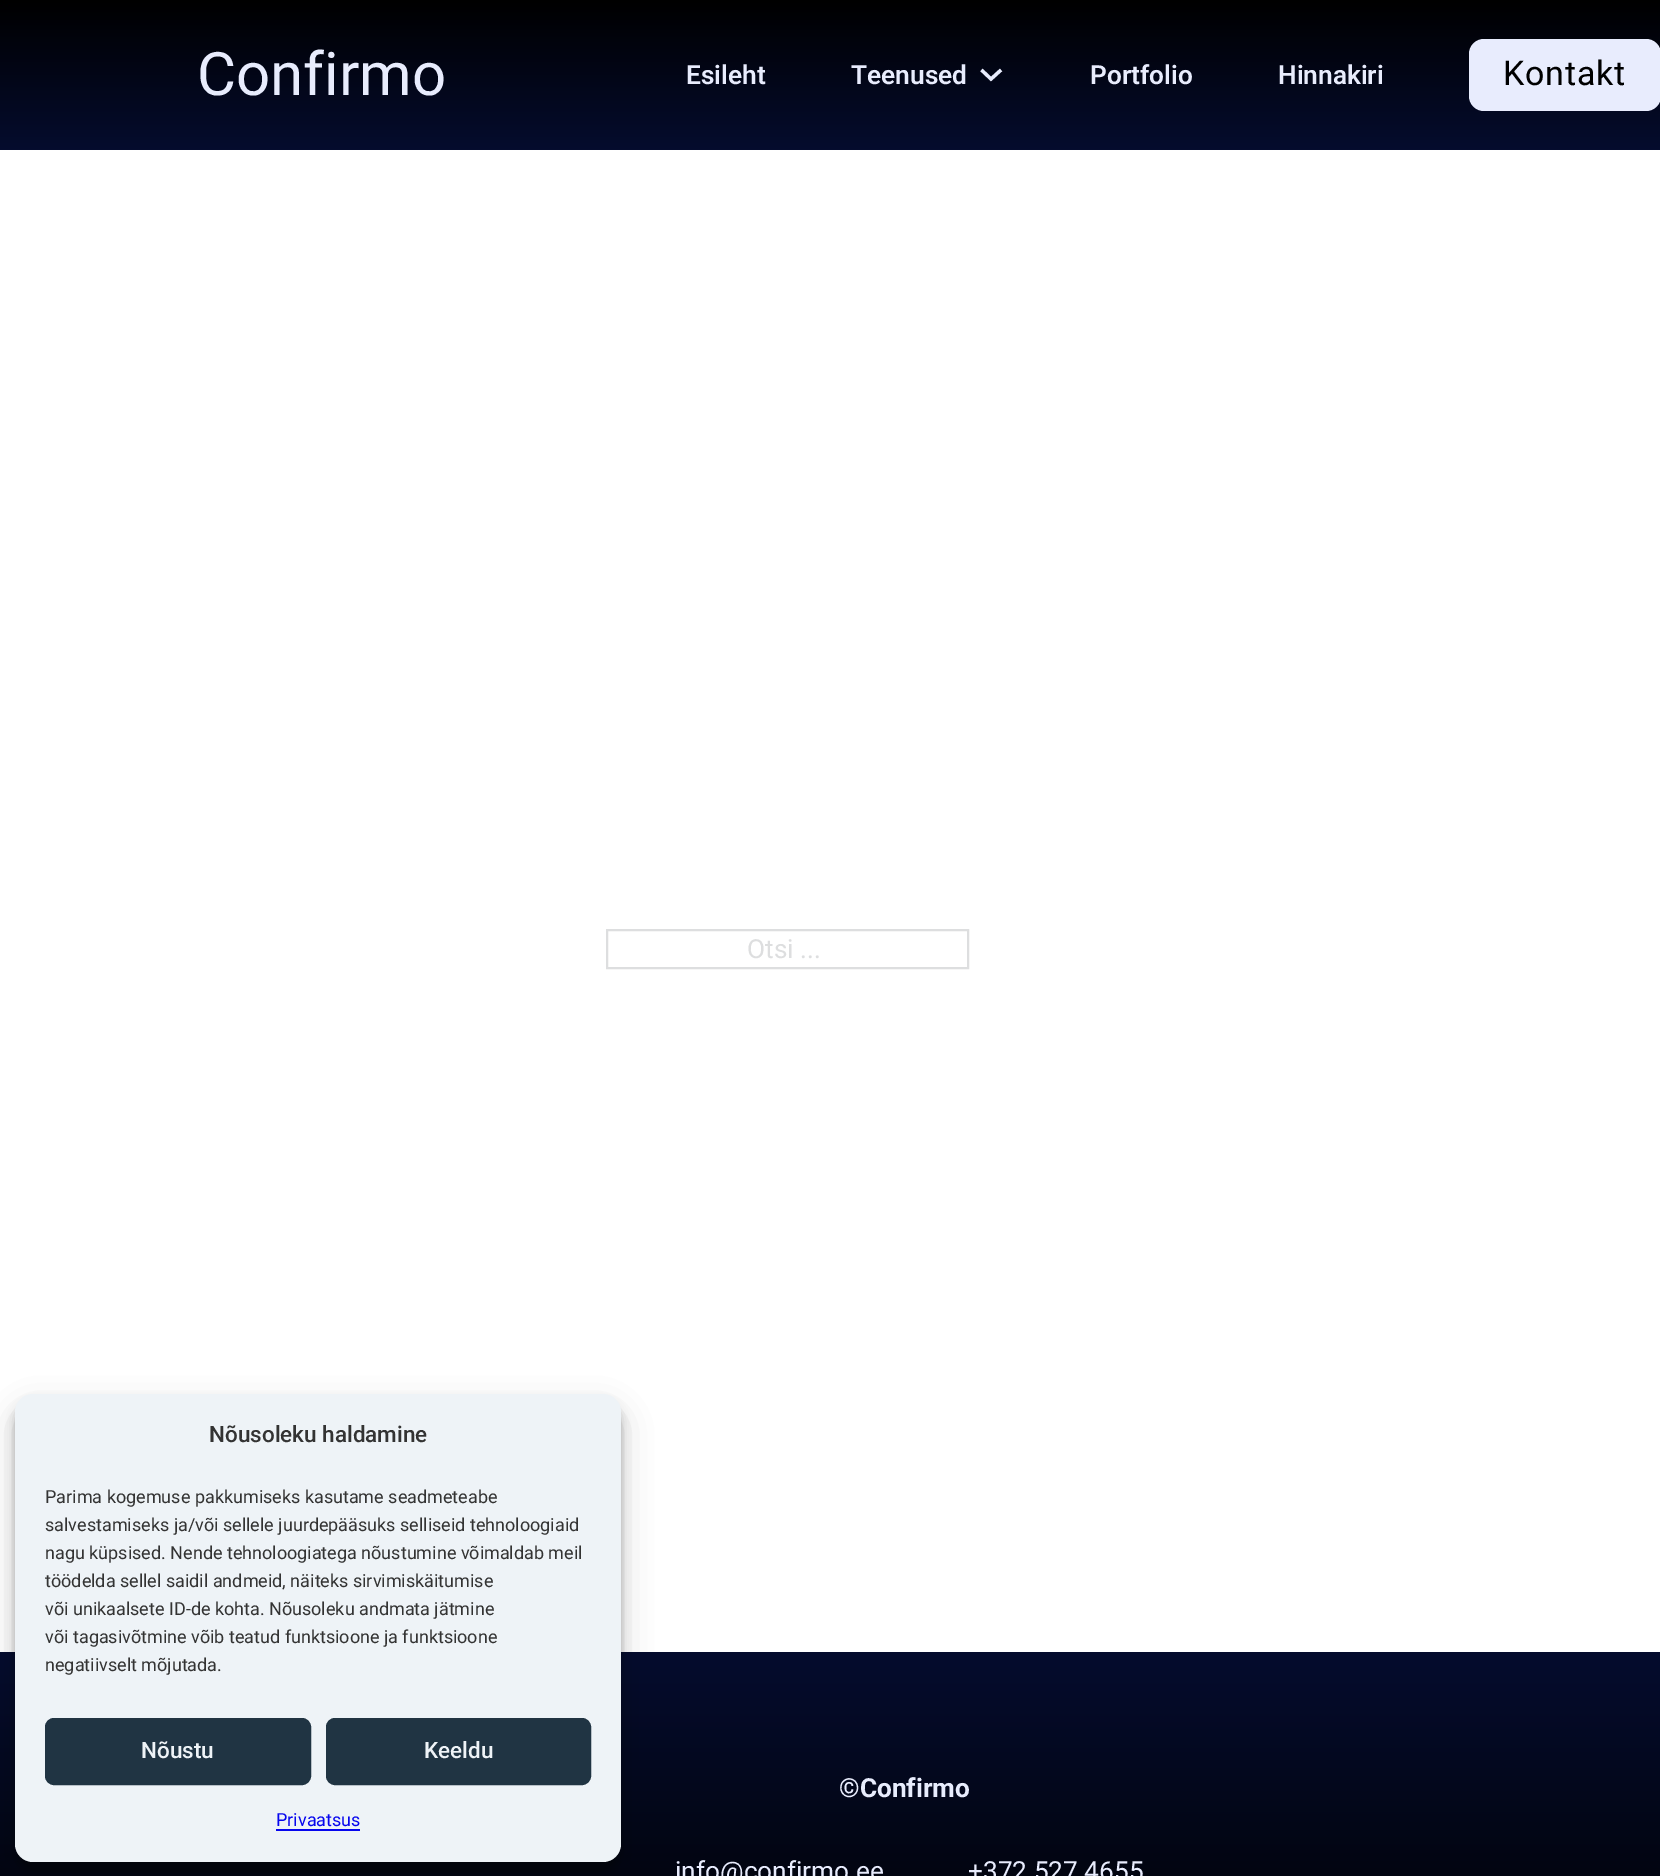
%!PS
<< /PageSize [1660 1876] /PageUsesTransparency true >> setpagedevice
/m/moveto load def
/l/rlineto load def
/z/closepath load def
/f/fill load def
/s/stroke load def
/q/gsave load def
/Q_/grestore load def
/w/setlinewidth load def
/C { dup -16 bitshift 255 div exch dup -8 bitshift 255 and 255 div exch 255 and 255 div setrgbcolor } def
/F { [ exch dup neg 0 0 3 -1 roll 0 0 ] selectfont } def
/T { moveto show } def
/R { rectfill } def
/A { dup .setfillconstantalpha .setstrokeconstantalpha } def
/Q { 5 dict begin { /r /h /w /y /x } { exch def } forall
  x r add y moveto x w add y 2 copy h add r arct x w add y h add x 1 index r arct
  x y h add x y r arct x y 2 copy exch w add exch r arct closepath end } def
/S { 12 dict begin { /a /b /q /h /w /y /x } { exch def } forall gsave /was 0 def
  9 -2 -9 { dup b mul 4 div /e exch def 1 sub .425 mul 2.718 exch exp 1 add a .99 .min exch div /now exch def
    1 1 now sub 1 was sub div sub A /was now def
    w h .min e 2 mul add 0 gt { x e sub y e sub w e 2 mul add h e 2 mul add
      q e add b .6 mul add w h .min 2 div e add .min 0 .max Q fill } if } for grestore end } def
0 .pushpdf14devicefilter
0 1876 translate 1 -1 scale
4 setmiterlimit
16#FFFFFF C
0 0 1660 1876 R
q 0 0 m 1660 0 l 0 150 l -1660 0 l z clip newpath
<< /ShadingType 2 /ColorSpace /DeviceRGB /Coords [830 0 830 150] /Extend [true true] /Function << /FunctionType 2 /Domain [0 1] /C0 [0 0 0] /C1 [.02 .047 .18] /N 1 >> >> shfill Q_
/Roboto-Regular 60 F
16#E8ECFD C
(Confirmo) 197 95 T
/Roboto-SemiBold 26.25 F
(Esileht) 686 84 T
(Teenused) 851 84 T
3.3 w
981.5 70 m 9.5 9 l 10 -9 l s
(Portfolio) 1090 84 T
(Hinnakiri) 1278 84 T
1469 39 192 72 15 Q f
/Roboto-Regular 34 F
16#000000 C
1503 85 m .75 0 (Kontakt) ashow
16#DDDEDF C
2 w
607 930 361 38 rectstroke
/Roboto-Regular 26.25 F
(Otsi ...) 747 958 T
q 0 1652 m 1660 0 l 0 224 l -1660 0 l z clip newpath
<< /ShadingType 2 /ColorSpace /DeviceRGB /Coords [830 1652 830 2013] /Extend [true true] /Function << /FunctionType 2 /Domain [0 1] /C0 [.02 .047 .18] /C1 [0 0 0] /N 1 >> >> shfill Q_
16#000000 C
15 1403 606 468 18 4.5 .23 S
15 1409 606 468 18 15 .19 S
16#EEF3F7 C
15 1394 606 468 18 Q f
/Roboto-Medium 22.5 F
16#333333 C
(Nõusoleku haldamine) 209 1442 T
/Roboto-Regular 18 F
(Parima kogemuse pakkumiseks kasutame seadmeteabe) 45 1503 T
(salvestamiseks ja/või sellele juurdepääsuks selliseid tehnoloogiaid) 45 1531 T
(nagu küpsised. Nende tehnoloogiatega nõustumine võimaldab meil) 45 1559 T
(töödelda sellel saidil andmeid, näiteks sirvimiskäitumise) 45 1587 T
(või unikaalsete ID-de kohta. Nõusoleku andmata jätmine) 45 1615 T
(või tagasivõtmine võib teatud funktsioone ja funktsioone) 45 1643 T
(negatiivselt mõjutada.) 45 1671 T
16#203443 C
46 1719 264 65 8 Q q f Q_
s
/Roboto-Medium 22.5 F
16#EEF3F7 C
(Nõustu) 141 1758 T
16#203443 C
327 1719 263 65 8 Q q f Q_
s
16#EEF3F7 C
(Keeldu) 424 1758 T
/Roboto-Regular 18 F
16#0605EE C
(Privaatsus) 276 1826 T
276 1829 84 2 R
/Roboto-Bold 26.25 F
16#E8ECFD C
(©Confirmo) 839 1797 T
/Roboto-Regular 26.25 F
(info@confirmo.ee) 675 1880 T
(+372 527 4655) 968 1880 T
.poppdf14devicefilter showpage
